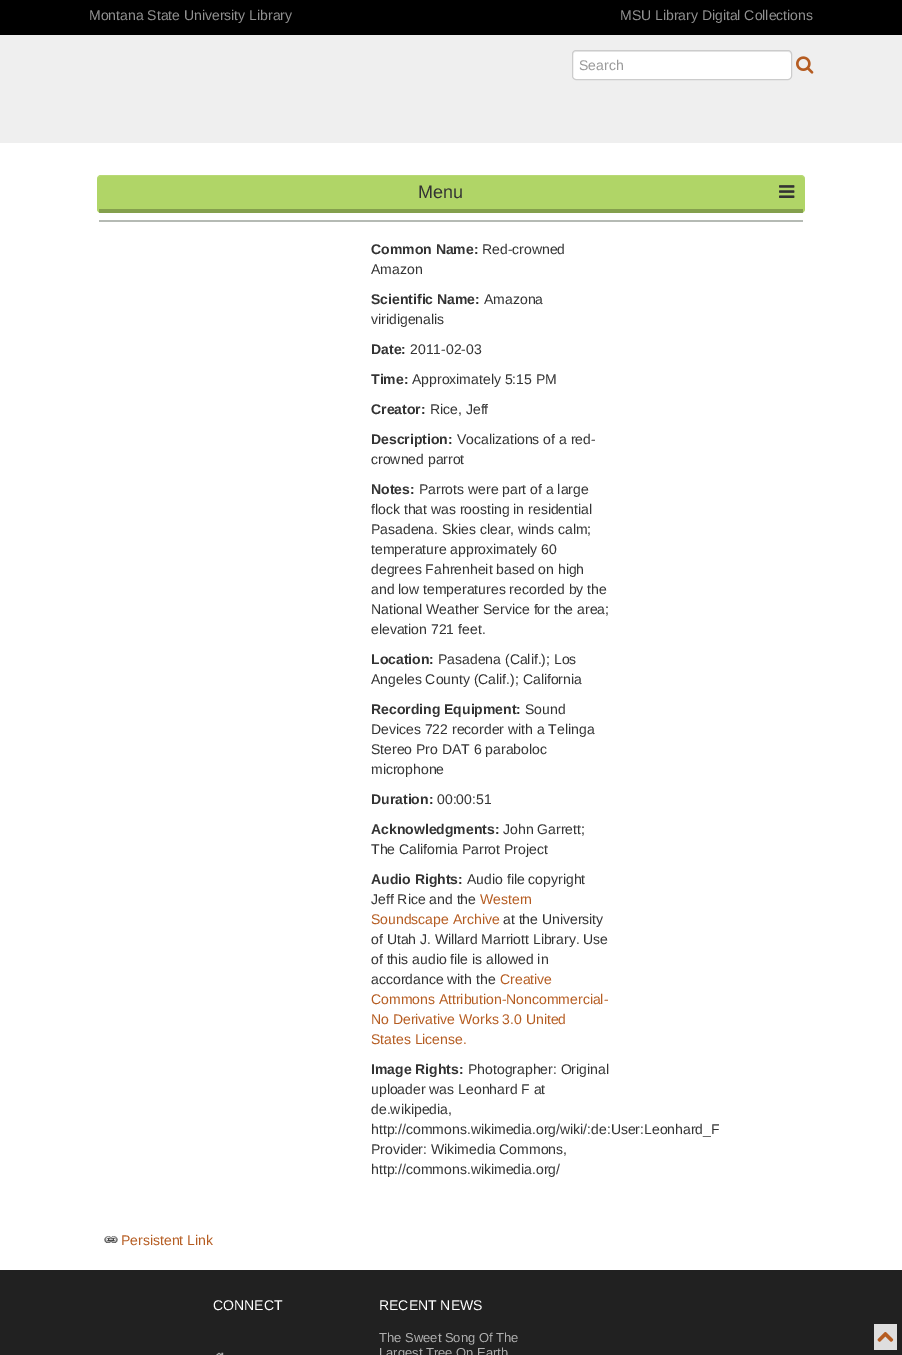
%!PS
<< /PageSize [902 1355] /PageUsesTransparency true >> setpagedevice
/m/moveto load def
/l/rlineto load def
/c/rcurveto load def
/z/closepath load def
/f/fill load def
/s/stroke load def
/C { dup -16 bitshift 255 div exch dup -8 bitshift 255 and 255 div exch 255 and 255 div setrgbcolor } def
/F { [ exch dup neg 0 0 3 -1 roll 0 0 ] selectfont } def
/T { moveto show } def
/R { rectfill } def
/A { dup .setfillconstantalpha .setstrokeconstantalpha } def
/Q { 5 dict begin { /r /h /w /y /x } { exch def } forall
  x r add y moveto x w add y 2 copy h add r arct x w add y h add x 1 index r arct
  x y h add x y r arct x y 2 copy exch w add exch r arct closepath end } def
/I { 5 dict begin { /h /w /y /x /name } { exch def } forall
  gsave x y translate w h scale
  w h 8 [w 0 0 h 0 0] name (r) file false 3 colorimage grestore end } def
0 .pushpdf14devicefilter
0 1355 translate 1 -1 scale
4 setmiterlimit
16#FFFFFF C
0 0 902 1355 R
16#000000 C
0 0 902 35 R
/LiberationSans-Regular 14 F
16#919191 C
(Montana State University Library) 89 20 T
(MSU Library Digital Collections) 620 20 T
16#EFEFEF C
0 35 902 108 R
16#FFFFFF C
572 50 220 30 4 Q f
16#ECECEC C
576 52 m 212 0 l 2 0 3 1 3 3 c 0 -1 l 0 -2 -1 -3 -3 -3 c -212 0 l -2 0 -3 1 -3 3 c 0 1 l 0 -2 1 -3 3 -3 c z f
16#CCCCCC C
572.5 50.5 219 29 3.5 Q s
16#999999 C
(Search) 579 70 T
(1.rgb) 796 56 18 18 I
16#B0D567 C
97 175 708 38 4 Q f
0.1 A
16#FFFFFF C
101 176 m 700 0 l 2 0 4 2 4 4 c 0 -3 -1 -5 -4 -5 c -700 0 l -3 1 l -1 1 l 0 3 l 0 -2 2 -4 4 -4 c z f
0.25 A
16#000000 C
99 209 704 4 R
/LiberationSans-Regular 18 F
1 A
16#333333 C
(Menu) 418 198 T
(2.rgb) 779 185 16 13 I
16#B5BAB4 C
99 220 704 2 R
/LiberationSans-Bold 14 F
16#333333 C
(Common Name:) 371 254 T
/LiberationSans-Regular 14 F
(Red-crowned) 482 254 T
(Amazon) 371 274 T
/LiberationSans-Bold 14 F
(Scientific Name:) 371 304 T
/LiberationSans-Regular 14 F
(Amazona) 484 304 T
(viridigenalis) 371 324 T
/LiberationSans-Bold 14 F
(Date:) 371 354 T
/LiberationSans-Regular 14 F
(2011-02-03) 410 354 T
/LiberationSans-Bold 14 F
(Time:) 371 384 T
/LiberationSans-Regular 14 F
(Approximately 5:15 PM) 412 384 T
/LiberationSans-Bold 14 F
(Creator:) 371 414 T
/LiberationSans-Regular 14 F
(Rice, Jeff) 430 414 T
/LiberationSans-Bold 14 F
(Description:) 371 444 T
/LiberationSans-Regular 14 F
(Vocalizations of a red-) 457 444 T
(crowned parrot) 371 464 T
/LiberationSans-Bold 14 F
(Notes:) 371 494 T
/LiberationSans-Regular 14 F
(Parrots were part of a large) 419 494 T
(flock that was roosting in residential) 371 514 T
(Pasadena. Skies clear, winds calm;) 371 534 T
(temperature approximately 60) 371 554 T
(degrees Fahrenheit based on high) 371 574 T
(and low temperatures recorded by the) 371 594 T
(National Weather Service for the area;) 371 614 T
(elevation 721 feet.) 371 634 T
/LiberationSans-Bold 14 F
(Location:) 371 664 T
/LiberationSans-Regular 14 F
(Pasadena \(Calif.\); Los) 438 664 T
(Angeles County \(Calif.\); California) 371 684 T
/LiberationSans-Bold 14 F
(Recording Equipment:) 371 714 T
/LiberationSans-Regular 14 F
(Sound) 525 714 T
(Devices 722 recorder with a Telinga) 371 734 T
(Stereo Pro DAT 6 paraboloc) 371 754 T
(microphone) 371 774 T
/LiberationSans-Bold 14 F
(Duration:) 371 804 T
/LiberationSans-Regular 14 F
(00:00:51) 437 804 T
/LiberationSans-Bold 14 F
(Acknowledgments:) 371 834 T
/LiberationSans-Regular 14 F
(John Garrett;) 503 834 T
(The California Parrot Project) 371 854 T
/LiberationSans-Bold 14 F
(Audio Rights:) 371 884 T
/LiberationSans-Regular 14 F
(Audio file copyright) 467 884 T
(Jeff Rice and the) 371 904 T
16#B55C21 C
(Western) 480 904 T
(Soundscape Archive) 371 924 T
16#333333 C
(at the University) 503 924 T
(of Utah J. Willard Marriott Library. Use) 371 944 T
(of this audio file is allowed in) 371 964 T
(accordance with the) 371 984 T
16#B55C21 C
(Creative) 500 984 T
(Commons Attribution-Noncommercial-) 371 1004 T
(No Derivative Works 3.0 United) 371 1024 T
(States License.) 371 1044 T
/LiberationSans-Bold 14 F
16#333333 C
(Image Rights:) 371 1074 T
/LiberationSans-Regular 14 F
(Photographer: Original) 468 1074 T
(uploader was Leonhard F at) 371 1094 T
(de.wikipedia,) 371 1114 T
(http://commons.wikimedia.org/wiki/:de:User:Leonhard_F) 371 1134 T
(Provider: Wikimedia Commons,) 371 1154 T
(http://commons.wikimedia.org/) 371 1174 T
(3.rgb) 104 1236 14 7 I
16#B55C21 C
(Persistent Link) 121 1245 T
16#212121 C
0 1270 902 85 R
16#FFFFFF C
(CONNECT) 213 1310 T
(4.rgb) 216 1352 8 3 I
(RECENT NEWS) 379 1310 T
/LiberationSans-Regular 13 F
16#AFAFAF C
(The Sweet Song Of The) 379 1342 T
(Largest Tree On Earth) 379 1357 T
16#DEDEDE C
874 1324 23 26 R
(5.rgb) 877 1332 17 10 I
.poppdf14devicefilter showpage
